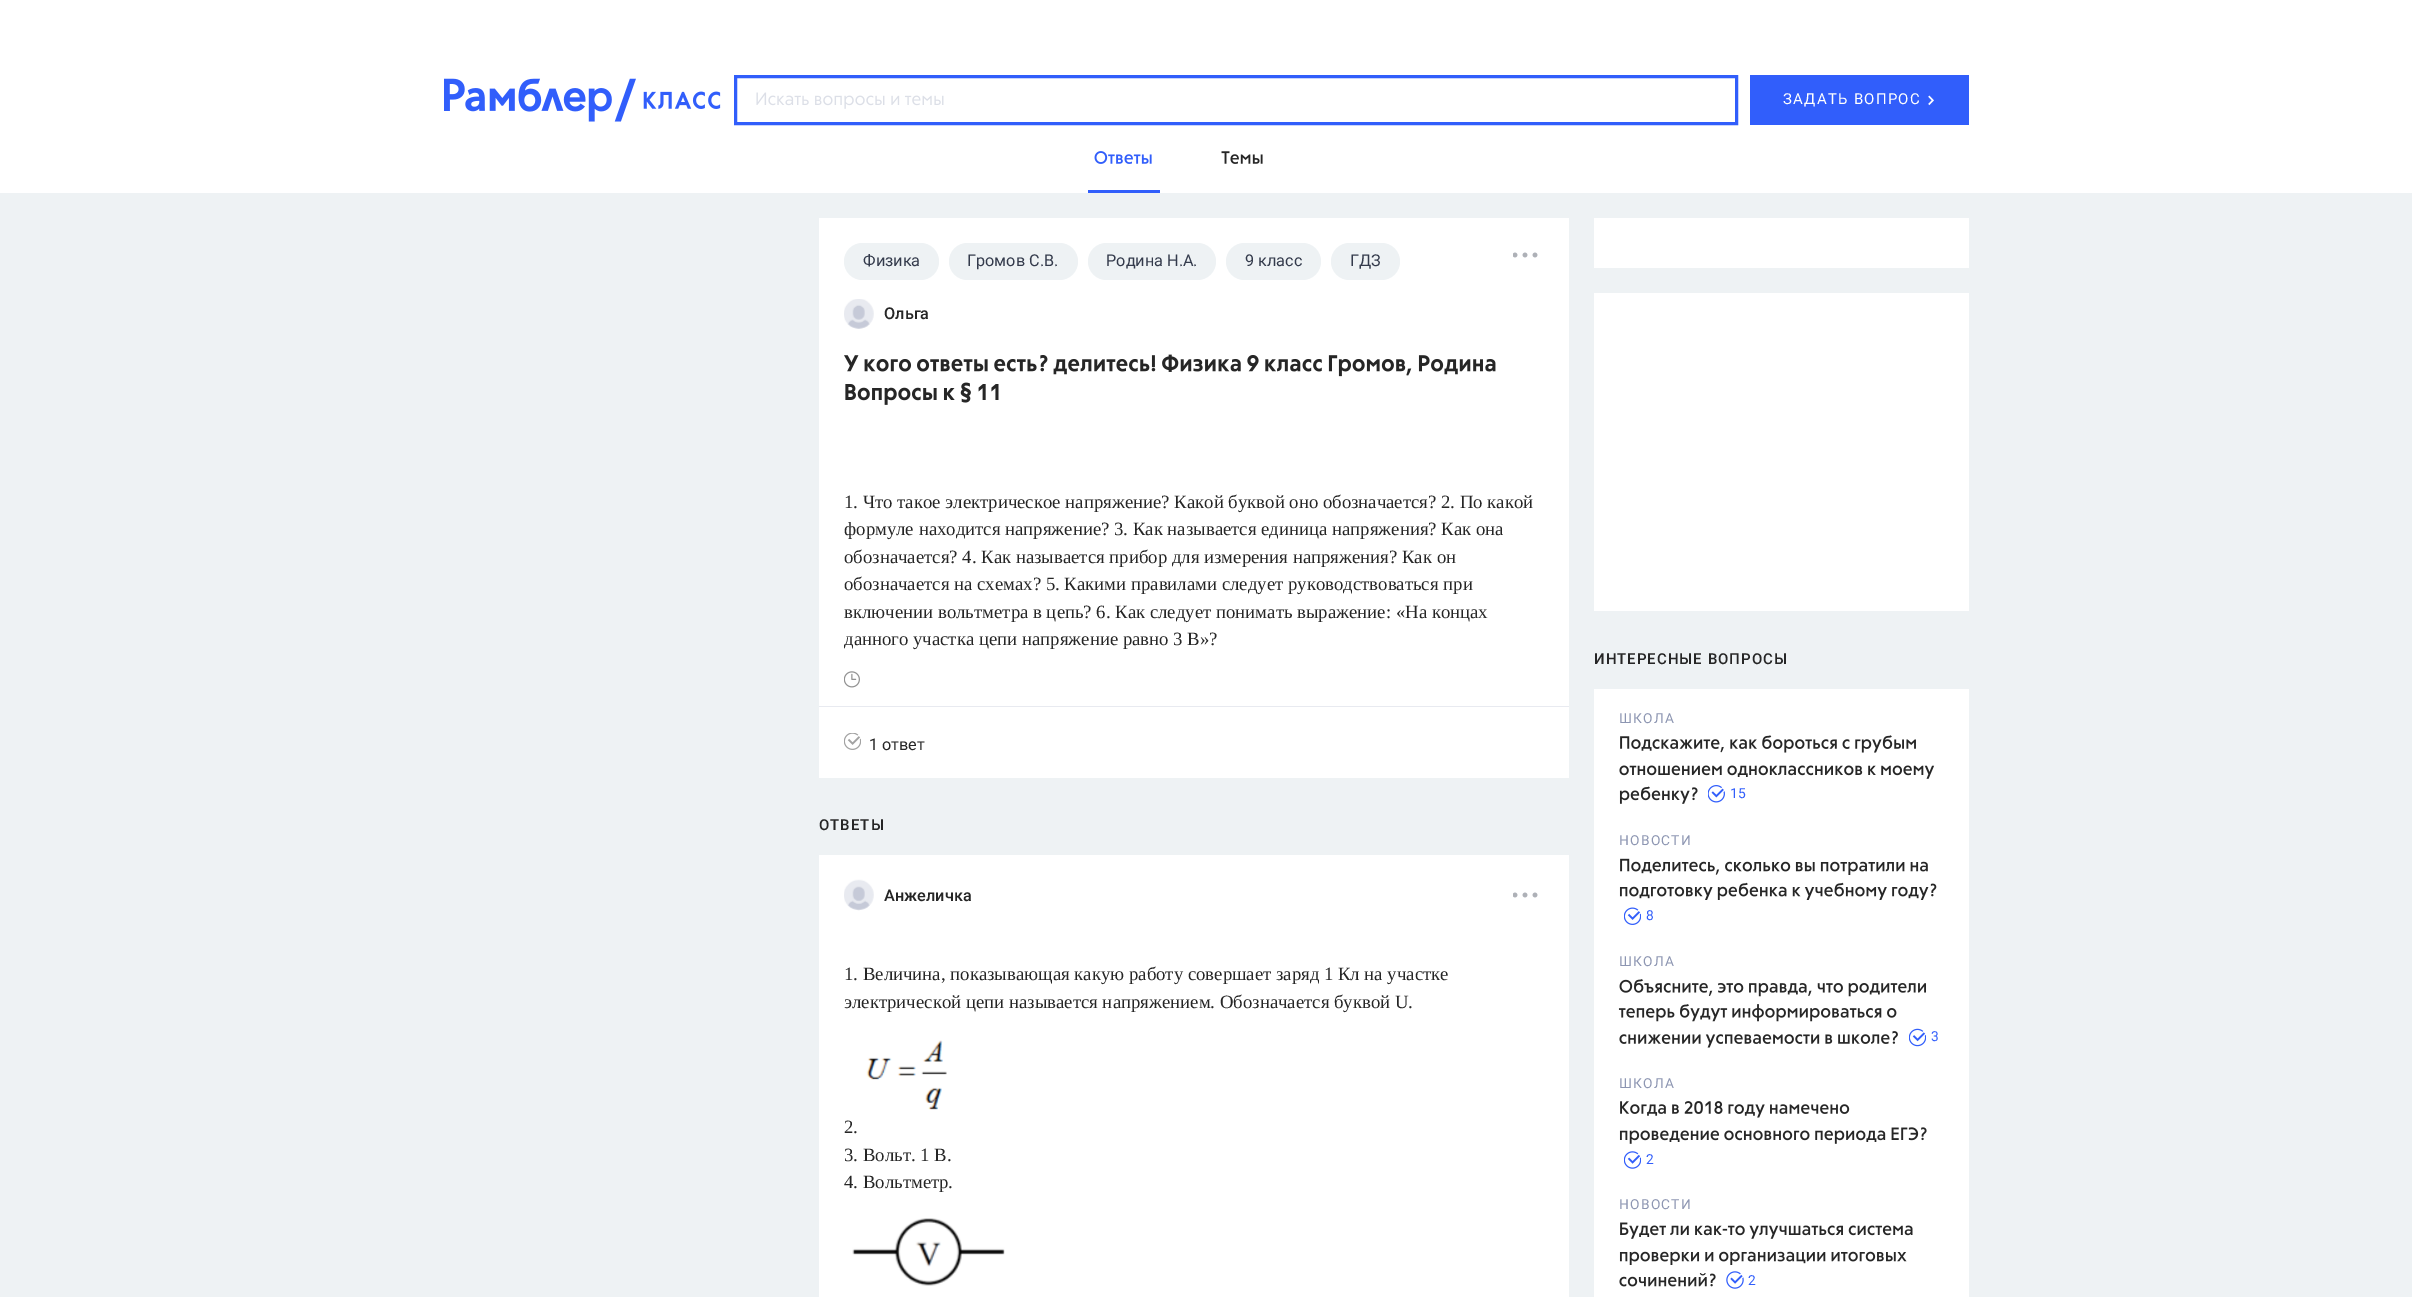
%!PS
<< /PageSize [2412 1297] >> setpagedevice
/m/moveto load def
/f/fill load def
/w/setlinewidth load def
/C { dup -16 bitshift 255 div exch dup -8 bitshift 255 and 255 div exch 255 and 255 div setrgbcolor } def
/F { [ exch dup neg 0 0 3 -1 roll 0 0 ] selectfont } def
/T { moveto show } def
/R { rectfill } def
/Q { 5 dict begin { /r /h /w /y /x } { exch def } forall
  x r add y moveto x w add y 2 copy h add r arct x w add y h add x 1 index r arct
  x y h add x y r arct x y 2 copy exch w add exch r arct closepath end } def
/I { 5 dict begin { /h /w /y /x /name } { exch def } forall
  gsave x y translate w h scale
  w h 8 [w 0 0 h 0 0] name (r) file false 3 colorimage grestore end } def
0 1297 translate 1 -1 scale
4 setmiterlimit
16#EEF2F4 C
0 0 2412 1297 R
16#FFFFFF C
0 0 2412 193 R
(1.rgb) 444 78 277 44 I
16#315EFB C
3 w
735.5 76.5 1001 47 rectstroke
(2.rgb) 756 92 188 17 I
1750 75 219 50 R
/Roboto-Regular 15 F
16#FFFFFF C
1783 104 m 1.25 0 (ЗАДАТЬ ВОПРОС) ashow
(3.rgb) 1928 95 6 11 I
16#315EFB C
1088 190 72 3 R
(4.rgb) 1094 151 58 13 I
(5.rgb) 1221 151 42 13 I
16#FFFFFF C
819 218 750 560 R
16#EEF2F4 C
844 243 95 37 18.5 Q f
/Roboto-Regular 16.25 F
16#343B4C C
(Физика) 863 266 T
16#EEF2F4 C
949 243 129 37 18.5 Q f
16#343B4C C
(Громов С.В.) 967 266 T
16#EEF2F4 C
1088 243 128 37 18.5 Q f
16#343B4C C
(Родина Н.А.) 1106 266 T
16#EEF2F4 C
1226 243 95 37 18.5 Q f
16#343B4C C
(9 класс) 1245 266 T
16#EEF2F4 C
1331 243 69 37 18.5 Q f
16#343B4C C
(ГДЗ) 1350 266 T
(6.rgb) 1513 252 25 6 I
(7.rgb) 844 299 30 30 I
/Roboto-Medium 16.25 F
16#262626 C
(Ольга) 884 319 T
(8.rgb) 844 354 652 23 I
(9.rgb) 845 382 154 23 I
/LiberationSerif-Regular 18.75 F
(1. Что такое электрическое напряжение? Какой буквой оно обозначается? 2. По какой) 844 508 T
(формуле находится напряжение? 3. Как называется единица напряжения? Как она) 844 535 T
(обозначается? 4. Как называется прибор для измерения напряжения? Как он) 844 563 T
(обозначается на схемах? 5. Какими правилами следует руководствоваться при) 844 590 T
(включении вольтметра в цепь? 6. Как следует понимать выражение: «На концах) 844 618 T
(данного участка цепи напряжение равно 3 В»?) 844 645 T
(10.rgb) 844 671 16 17 I
16#E8EAF0 C
819 706 750 1 R
(11.rgb) 844 733 17 17 I
/Roboto-Regular 16.25 F
16#262626 C
(1 ответ) 869 750 T
/Roboto-Medium 15 F
819 830 m 1 0 (ОТВЕТЫ) ashow
16#FFFFFF C
819 855 750 442 R
(12.rgb) 844 879 30 32 I
/Roboto-Medium 16.25 F
16#262626 C
(Анжеличка) 884 901 T
(6.rgb) 1513 892 25 6 I
/LiberationSerif-Regular 18.75 F
(1. Величина, показывающая какую работу совершает заряд 1 Кл на участке) 844 980 T
(электрической цепи называется напряжением. Обозначается буквой U.) 844 1008 T
(13.rgb) 866 1040 81 70 I
(2.) 844 1133 T
(3. Вольт. 1 В.) 844 1161 T
(4. Вольтметр.) 844 1188 T
(14.rgb) 852 1218 153 68 I
16#FFFFFF C
1594 218 375 50 R
1594 293 375 318 R
/Roboto-Medium 15 F
16#262626 C
1594 664 m 1 0 (ИНТЕРЕСНЫЕ ВОПРОСЫ) ashow
16#FFFFFF C
1594 689 375 608 R
/Roboto-Regular 13.75 F
16#8D96B2 C
1619 723 m 1.25 0 (ШКОЛА) ashow
(15.rgb) 1620 735 296 18 I
(16.rgb) 1619 765 316 14 I
(17.rgb) 1619 786 79 18 I
(18.rgb) 1708 785 17 18 I
16#315EFB C
(15) 1730 798 T
16#8D96B2 C
1619 845 m 1.25 0 (НОВОСТИ) ashow
(19.rgb) 1620 858 308 17 I
(20.rgb) 1619 882 318 18 I
(21.rgb) 1624 907 17 18 I
16#315EFB C
(8) 1646 920 T
16#8D96B2 C
1619 966 m 1.25 0 (ШКОЛА) ashow
(22.rgb) 1619 979 307 18 I
(23.rgb) 1618 1004 279 18 I
(24.rgb) 1619 1031 279 17 I
(25.rgb) 1909 1028 17 19 I
16#315EFB C
(3) 1931 1041 T
16#8D96B2 C
1619 1088 m 1.25 0 (ШКОЛА) ashow
(26.rgb) 1620 1101 230 17 I
(27.rgb) 1619 1127 308 17 I
(28.rgb) 1624 1151 17 18 I
16#315EFB C
(2) 1646 1164 T
16#8D96B2 C
1619 1209 m 1.25 0 (НОВОСТИ) ashow
(29.rgb) 1620 1222 293 17 I
(30.rgb) 1619 1251 288 14 I
(31.rgb) 1619 1273 97 14 I
(32.rgb) 1726 1271 18 18 I
16#315EFB C
(2) 1748 1285 T
showpage
